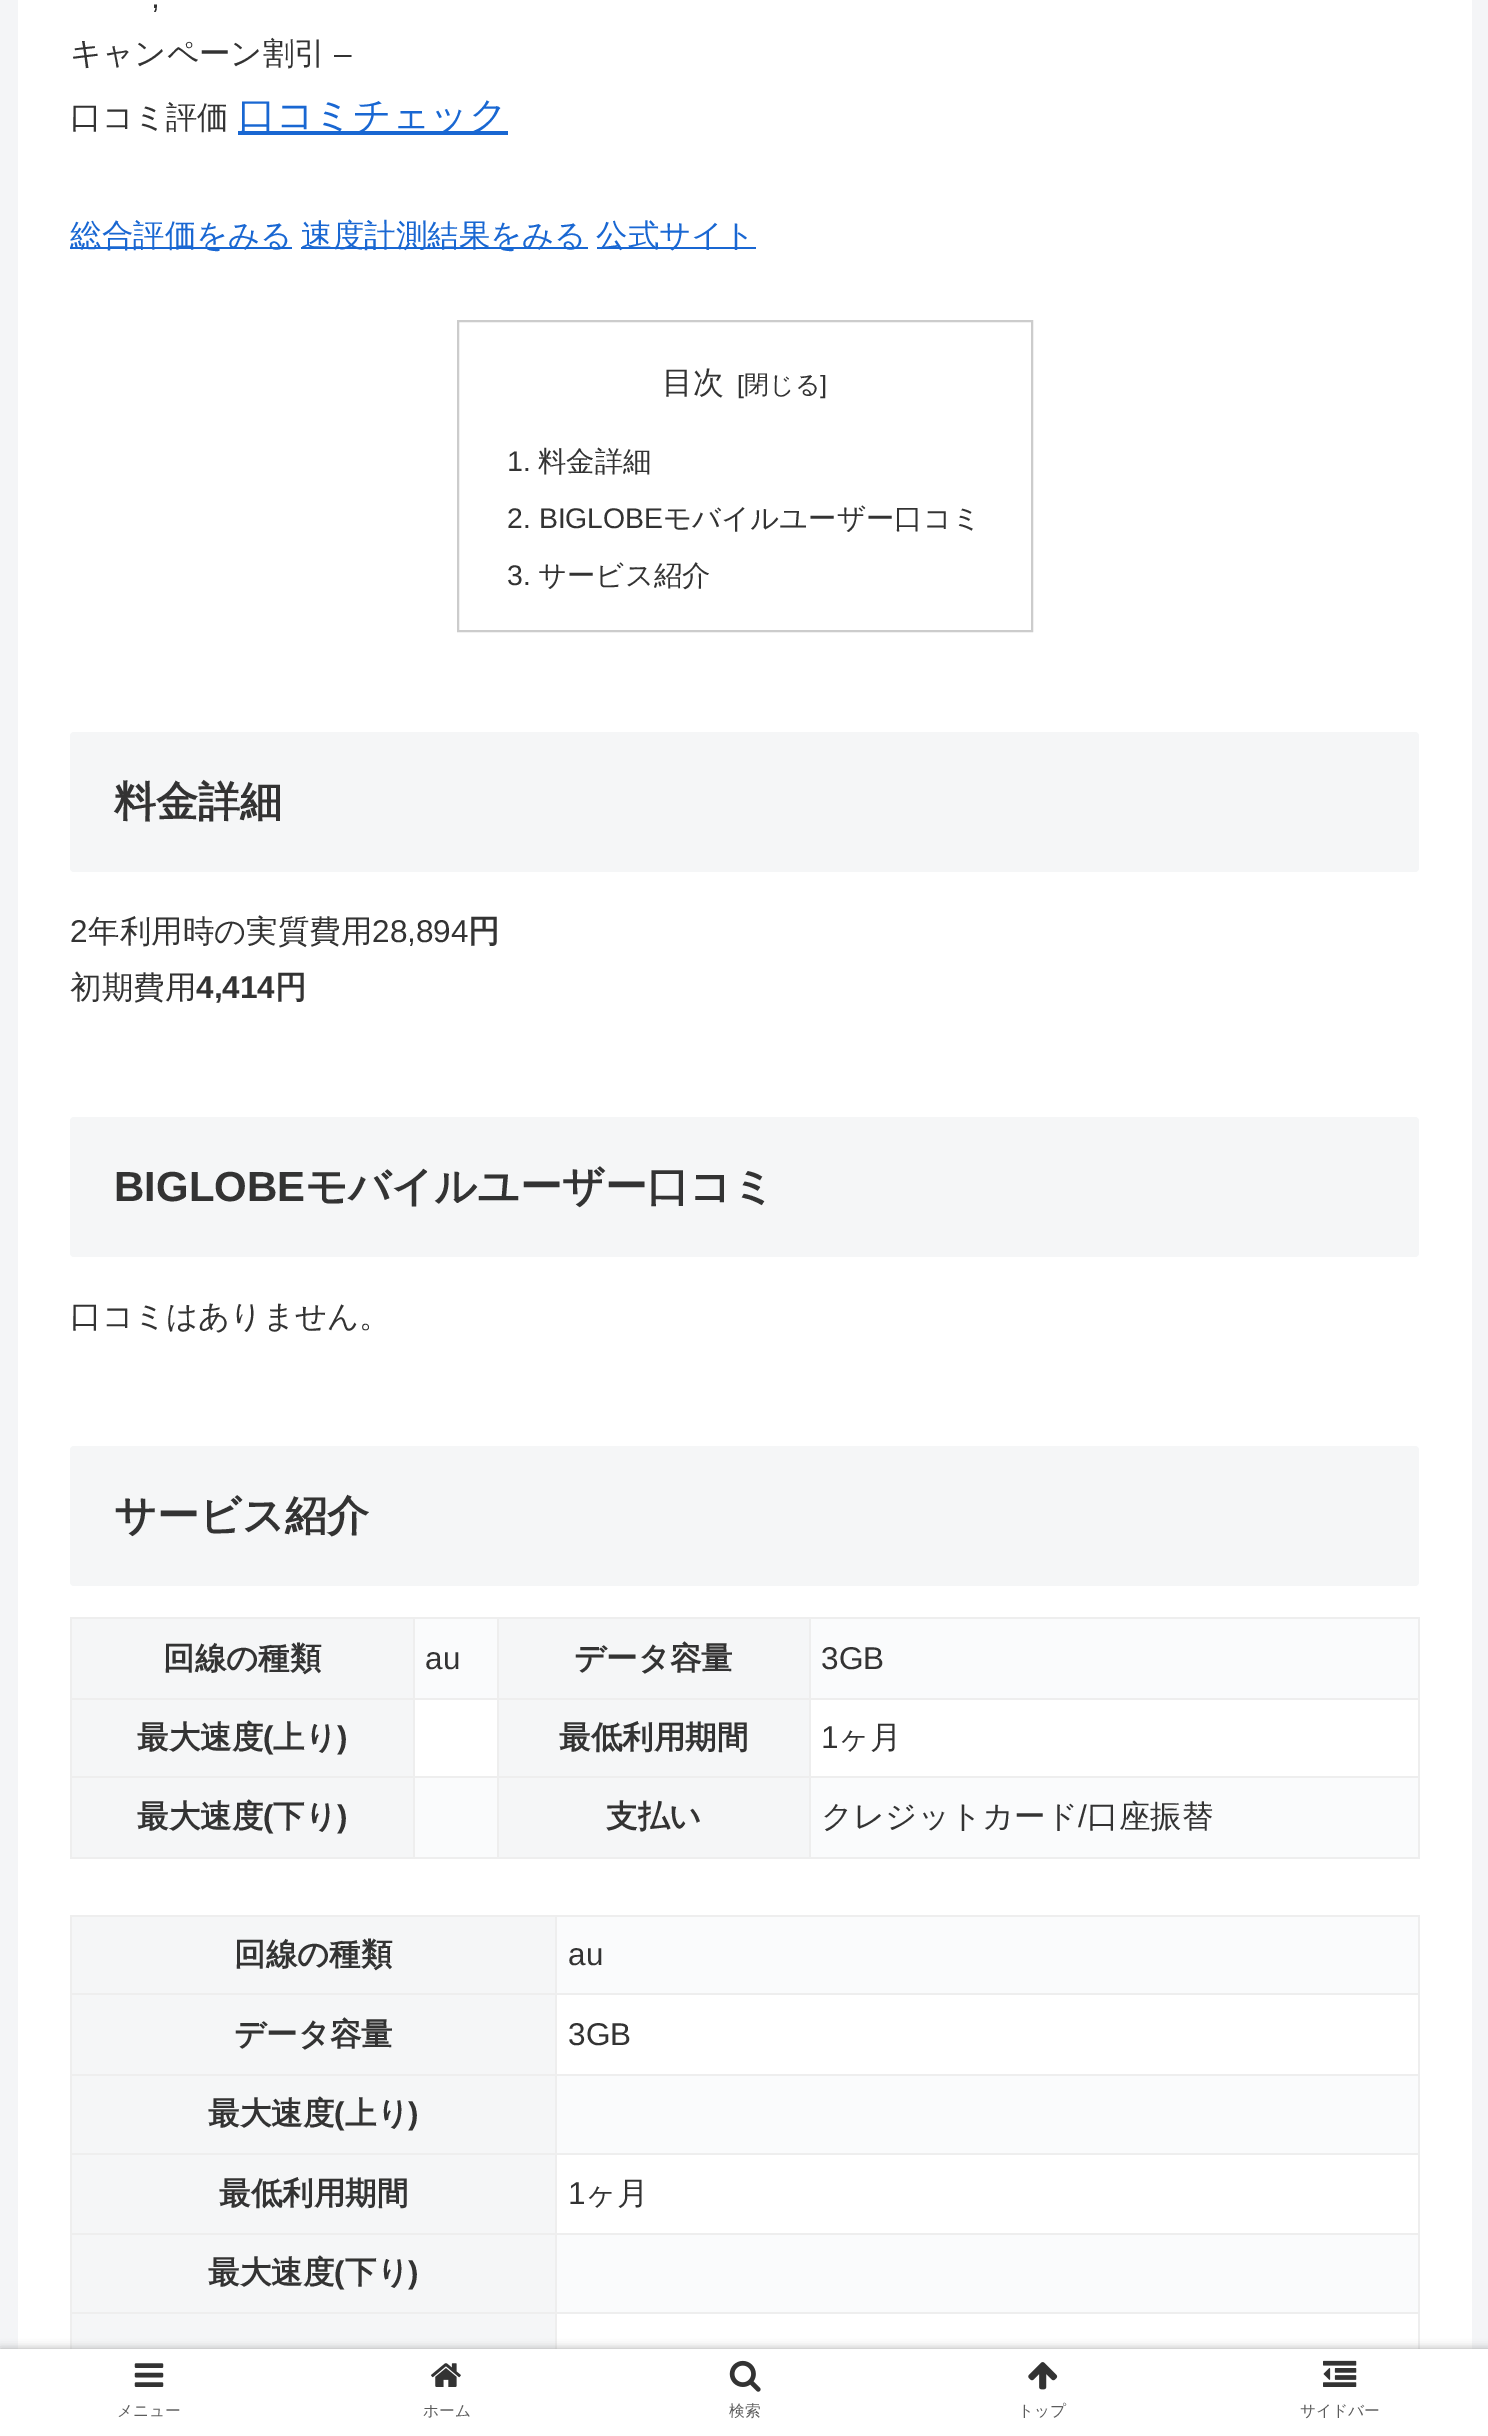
%!PS
<< /PageSize [1488 2436] /PageUsesTransparency true >> setpagedevice
/f/fill load def
/w/setlinewidth load def
/C { dup -16 bitshift 255 div exch dup -8 bitshift 255 and 255 div exch 255 and 255 div setrgbcolor } def
/F { [ exch dup neg 0 0 3 -1 roll 0 0 ] selectfont } def
/T { moveto show } def
/R { rectfill } def
/A { dup .setfillconstantalpha .setstrokeconstantalpha } def
/Q { 5 dict begin { /r /h /w /y /x } { exch def } forall
  x r add y moveto x w add y 2 copy h add r arct x w add y h add x 1 index r arct
  x y h add x y r arct x y 2 copy exch w add exch r arct closepath end } def
/S { 12 dict begin { /a /b /q /h /w /y /x } { exch def } forall gsave /was 0 def
  9 -2 -9 { dup b mul 4 div /e exch def 1 sub .425 mul 2.718 exch exp 1 add a .99 .min exch div /now exch def
    1 1 now sub 1 was sub div sub A /was now def
    w h .min e 2 mul add 0 gt { x e sub y e sub w e 2 mul add h e 2 mul add
      q e add b .6 mul add w h .min 2 div e add .min 0 .max Q fill } if } for grestore end } def
/I { 5 dict begin { /h /w /y /x /name } { exch def } forall
  gsave x y translate w h scale
  w h 8 [w 0 0 h 0 0] name (r) file false 3 colorimage grestore end } def
0 .pushpdf14devicefilter
0 2436 translate 1 -1 scale
4 setmiterlimit
16#F4F5F7 C
0 0 1488 2436 R
16#FFFFFF C
18 0 1454 2349 R
/LiberationSans-Regular 31.5 F
16#333333 C
(,) 151 8 T
/WenQuanYiZenHei-Medium 31.5 F
(キャンペーン割引) 70 64 T
/LiberationSans-Regular 31.5 F
(–) 334 64 T
/WenQuanYiZenHei-Medium 31.5 F
(口コミ評価) 70 128 T
16#1967D2 C
238 131 270 4 R
/WenQuanYiZenHei-Medium 37.75 F
(口コミチェック) 238 128 T
70 247 222 2 R
/WenQuanYiZenHei-Medium 31.5 F
(総合評価をみる) 70 246 T
301 247 287 2 R
(速度計測結果をみる) 301 246 T
597 247 159 2 R
(公式サイト) 596 246 T
16#CCCCCC C
2 w
458 321 574 310 rectstroke
/WenQuanYiZenHei-Medium 31 F
16#333333 C
(目次) 662 393 T
/LiberationSans-Regular 25 F
([) 737 393 T
/WenQuanYiZenHei-Medium 25 F
(閉じる) 744 393 T
/LiberationSans-Regular 25 F
(]) 820 393 T
/LiberationSans-Regular 28.4 F
(1.) 507 471 T
/WenQuanYiZenHei-Medium 28.4 F
(料金詳細) 538 471 T
/LiberationSans-Regular 28.4 F
(2. BIGLOBE) 507 528 T
/WenQuanYiZenHei-Medium 28.4 F
(モバイルユーザー口コミ) 663 528 T
/LiberationSans-Regular 28.4 F
(3.) 507 585 T
/WenQuanYiZenHei-Medium 28.4 F
(サービス紹介) 538 585 T
16#F5F6F7 C
70 732 1349 140 4 Q f
/WenQuanYiZenHei-Bold 42 F
16#333333 C
(料金詳細) 114 816 T
/LiberationSans-Regular 31.5 F
(2) 70 942 T
/WenQuanYiZenHei-Medium 31.5 F
(年利用時の実質費用) 88 942 T
/LiberationSans-Regular 31.5 F
(28,894) 372 942 T
/WenQuanYiZenHei-Bold 31.5 F
(円) 468 942 T
/WenQuanYiZenHei-Medium 31.5 F
(初期費用) 70 998 T
/LiberationSans-Bold 31.5 F
(4,414) 196 998 T
/WenQuanYiZenHei-Bold 31.5 F
(円) 275 998 T
16#F5F6F7 C
70 1117 1349 140 4 Q f
/LiberationSans-Bold 42 F
16#333333 C
(BIGLOBE) 114 1201 T
/WenQuanYiZenHei-Bold 42 F
(モバイルユーザー口コミ) 305 1201 T
/WenQuanYiZenHei-Medium 31.5 F
(口コミはありません。) 70 1327 T
16#F5F6F7 C
70 1446 1349 140 4 Q f
/WenQuanYiZenHei-Bold 42 F
16#333333 C
(サービス紹介) 114 1530 T
16#FAFBFC C
415 1619 1003 79 R
16#F5F6F7 C
72 1619 341 79 R
16#EEEEEE C
809 1617 610 2 R
809 1698 610 2 R
809 1776 610 2 R
16#FAFBFC C
415 1778 1003 79 R
16#EEEEEE C
1418 1776 2 83 R
809 1857 610 2 R
809 1776 2 83 R
497 1776 313 2 R
809 1698 2 80 R
497 1698 313 2 R
809 1617 2 82 R
497 1617 313 2 R
497 1857 313 2 R
497 1776 2 83 R
413 1776 86 2 R
497 1698 2 80 R
413 1698 86 2 R
497 1617 2 82 R
413 1617 86 2 R
413 1857 86 2 R
413 1776 2 83 R
70 1776 345 2 R
413 1698 2 80 R
70 1698 345 2 R
413 1617 2 82 R
70 1617 345 2 R
70 1857 345 2 R
70 1776 2 83 R
70 1698 2 80 R
70 1617 2 82 R
/WenQuanYiZenHei-Bold 31.5 F
16#333333 C
(回線の種類) 163 1669 T
/LiberationSans-Regular 31.5 F
(au) 425 1669 T
16#F5F6F7 C
499 1619 310 79 R
/WenQuanYiZenHei-Bold 31.5 F
16#333333 C
(データ容量) 574 1669 T
16#EEEEEE C
1418 1698 2 80 R
1418 1617 2 82 R
/LiberationSans-Regular 31.5 F
16#333333 C
(3GB) 821 1669 T
16#F5F6F7 C
72 1700 341 76 R
/WenQuanYiZenHei-Bold 31.5 F
16#333333 C
(最大速度) 137 1748 T
/LiberationSans-Bold 31.5 F
(\() 263 1748 T
/WenQuanYiZenHei-Bold 31.5 F
(上り) 273 1748 T
/LiberationSans-Bold 31.5 F
(\)) 337 1748 T
16#F5F6F7 C
499 1700 310 76 R
/WenQuanYiZenHei-Bold 31.5 F
16#333333 C
(最低利用期間) 559 1748 T
/LiberationSans-Regular 31.5 F
(1) 821 1748 T
/WenQuanYiZenHei-Medium 31.5 F
(ヶ月) 838 1748 T
16#F5F6F7 C
72 1778 341 79 R
/WenQuanYiZenHei-Bold 31.5 F
16#333333 C
(最大速度) 137 1827 T
/LiberationSans-Bold 31.5 F
(\() 263 1827 T
/WenQuanYiZenHei-Bold 31.5 F
(下り) 273 1827 T
/LiberationSans-Bold 31.5 F
(\)) 337 1827 T
16#F5F6F7 C
499 1778 310 79 R
/WenQuanYiZenHei-Bold 31.5 F
16#333333 C
(支払い) 606 1827 T
/WenQuanYiZenHei-Medium 31.5 F
(クレジットカード) 821 1827 T
/LiberationSans-Regular 31.5 F
(/) 1078 1827 T
/WenQuanYiZenHei-Medium 31.5 F
(口座振替) 1087 1827 T
16#FAFBFC C
557 1917 861 76 R
16#F5F6F7 C
72 1917 483 76 R
16#EEEEEE C
555 1915 864 2 R
555 1993 864 2 R
555 2074 864 2 R
555 2153 864 2 R
555 2233 864 2 R
555 2312 864 2 R
555 2312 2 37 R
70 2312 487 2 R
555 2233 2 81 R
70 2233 487 2 R
555 2153 2 82 R
70 2153 487 2 R
555 2074 2 80 R
70 2074 487 2 R
555 1993 2 83 R
70 1993 487 2 R
555 1915 2 80 R
70 1915 487 2 R
70 2312 2 37 R
70 2233 2 81 R
70 2153 2 82 R
70 2074 2 80 R
70 1993 2 83 R
70 1915 2 80 R
/WenQuanYiZenHei-Bold 31.5 F
16#333333 C
(回線の種類) 234 1965 T
16#EEEEEE C
1418 2312 2 37 R
1418 2233 2 81 R
1418 2153 2 82 R
1418 2074 2 80 R
1418 1993 2 83 R
1418 1915 2 80 R
/LiberationSans-Regular 31.5 F
16#333333 C
(au) 568 1965 T
16#F5F6F7 C
72 1995 483 79 R
/WenQuanYiZenHei-Bold 31.5 F
16#333333 C
(データ容量) 234 2045 T
/LiberationSans-Regular 31.5 F
(3GB) 568 2045 T
16#FAFBFC C
557 2076 861 77 R
16#F5F6F7 C
72 2076 483 77 R
/WenQuanYiZenHei-Bold 31.5 F
16#333333 C
(最大速度) 208 2124 T
/LiberationSans-Bold 31.5 F
(\() 334 2124 T
/WenQuanYiZenHei-Bold 31.5 F
(上り) 345 2124 T
/LiberationSans-Bold 31.5 F
(\)) 408 2124 T
16#F5F6F7 C
72 2155 483 78 R
/WenQuanYiZenHei-Bold 31.5 F
16#333333 C
(最低利用期間) 219 2204 T
/LiberationSans-Regular 31.5 F
(1) 568 2204 T
/WenQuanYiZenHei-Medium 31.5 F
(ヶ月) 585 2204 T
16#FAFBFC C
557 2235 861 77 R
16#F5F6F7 C
72 2235 483 77 R
/WenQuanYiZenHei-Bold 31.5 F
16#333333 C
(最大速度) 208 2283 T
/LiberationSans-Bold 31.5 F
(\() 334 2283 T
/WenQuanYiZenHei-Bold 31.5 F
(下り) 345 2283 T
/LiberationSans-Bold 31.5 F
(\)) 408 2283 T
16#F5F6F7 C
72 2314 483 35 R
16#A9A9A9 C
0 2349 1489 87 0 4.5 1 S
16#FFFFFF C
0 2349 1488 87 R
(1.rgb) 134 2363 30 24 I
/WenQuanYiZenHei-Medium 15.75 F
16#5C5C5C C
(メニュー) 117 2416 T
(2.rgb) 431 2363 30 24 I
(ホーム) 423 2416 T
(3.rgb) 729 2360 32 32 I
(検索) 729 2416 T
(4.rgb) 1028 2362 30 28 I
(トップ) 1018 2416 T
(5.rgb) 1323 2360 34 27 I
(サイドバー) 1300 2416 T
.poppdf14devicefilter showpage
